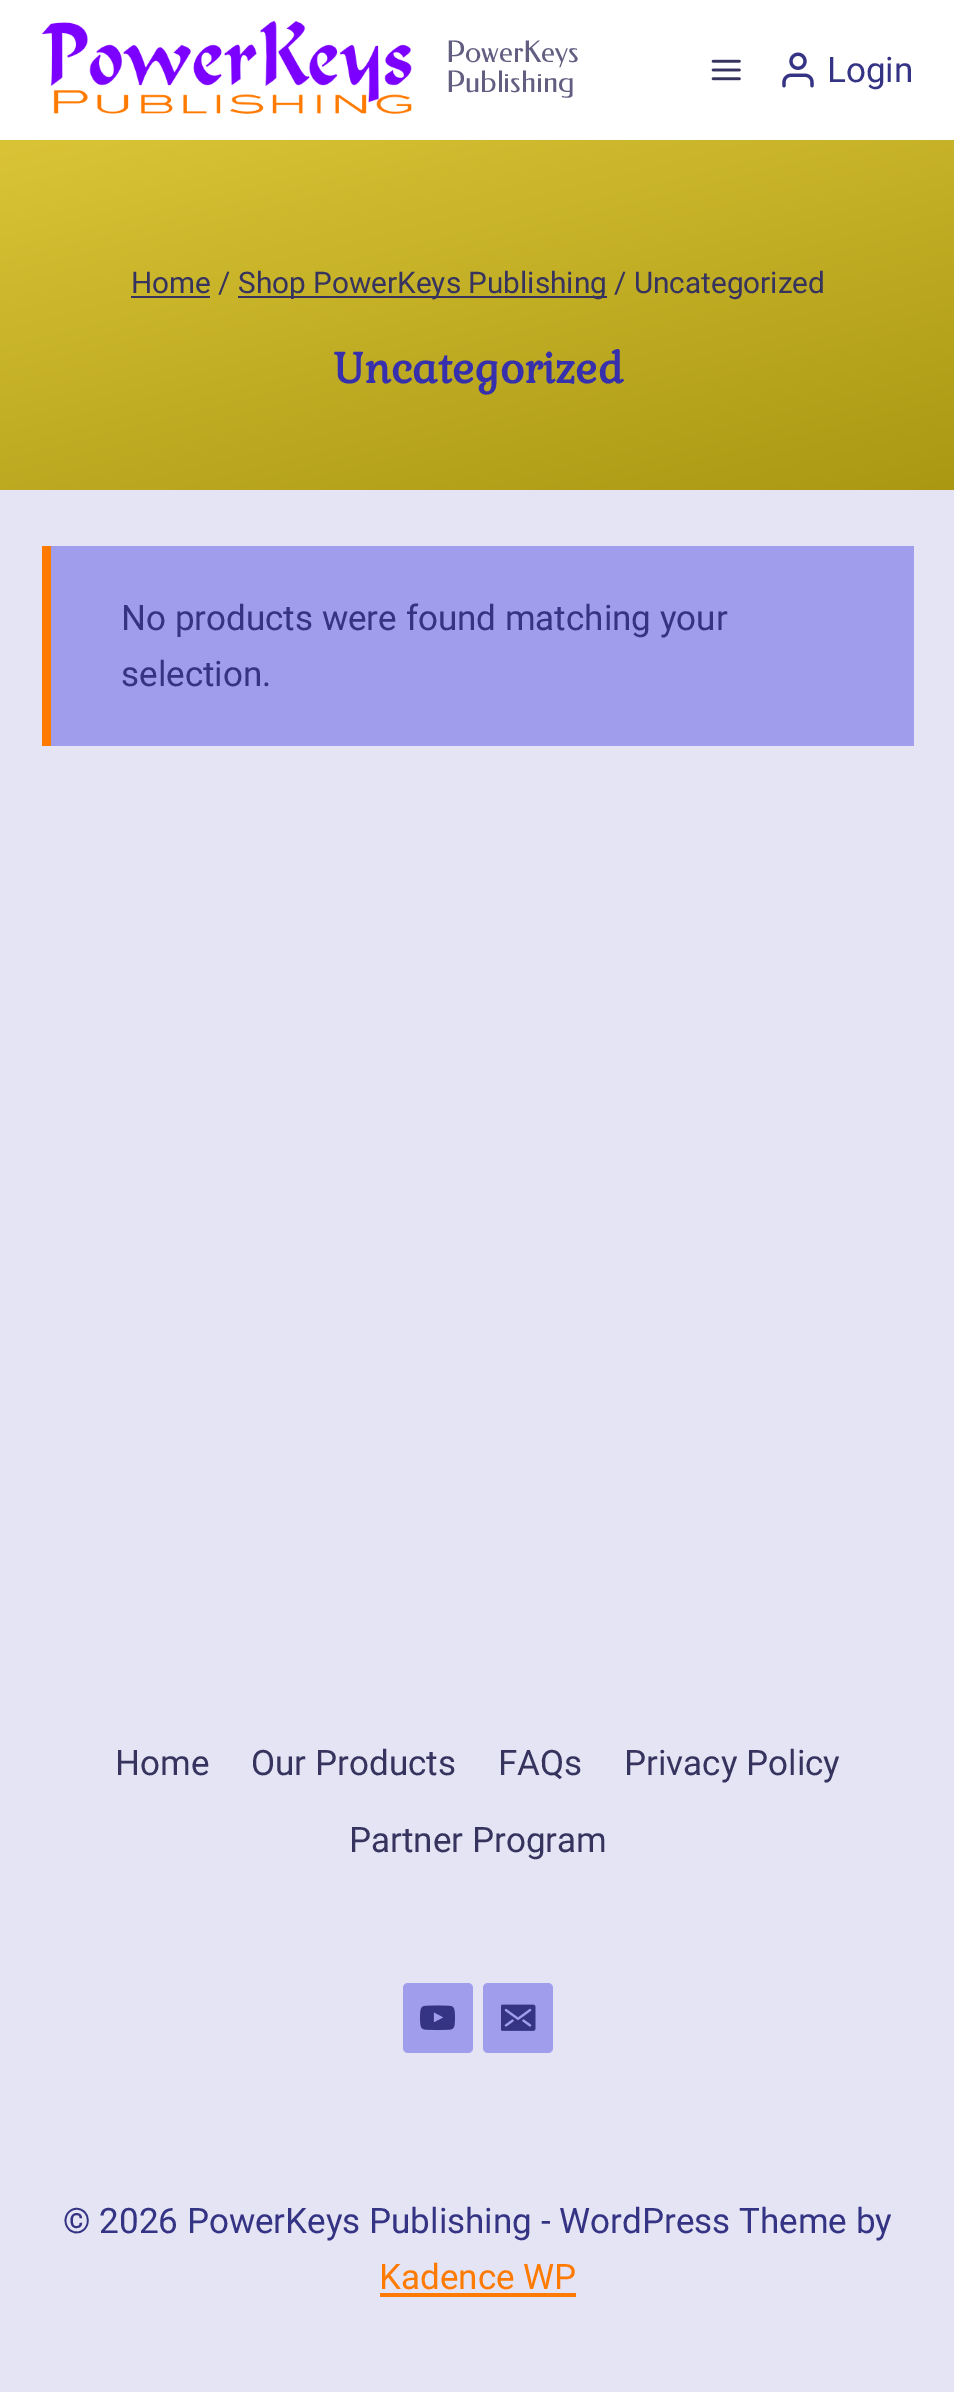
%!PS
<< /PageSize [954 2392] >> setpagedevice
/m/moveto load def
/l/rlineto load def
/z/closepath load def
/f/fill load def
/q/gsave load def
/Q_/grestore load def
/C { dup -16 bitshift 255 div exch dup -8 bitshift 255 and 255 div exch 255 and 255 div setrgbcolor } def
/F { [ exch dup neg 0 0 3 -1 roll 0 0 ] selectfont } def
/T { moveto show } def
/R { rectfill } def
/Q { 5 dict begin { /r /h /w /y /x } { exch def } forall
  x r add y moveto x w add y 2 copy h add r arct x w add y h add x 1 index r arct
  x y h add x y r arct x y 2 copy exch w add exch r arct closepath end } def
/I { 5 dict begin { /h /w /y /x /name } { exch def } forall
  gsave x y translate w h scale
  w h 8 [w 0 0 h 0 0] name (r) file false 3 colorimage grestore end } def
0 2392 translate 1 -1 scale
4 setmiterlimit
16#E5E4F4 C
0 0 954 2392 R
16#FFFFFF C
0 0 954 140 R
(1.rgb) 42 21 370 93 I
/Federo-Regular 29.75 F
16#625E81 C
(PowerKeys) 446 62 T
(Publishing) 446 92 T
(2.rgb) 711 59 30 22 I
(3.rgb) 782 52 32 36 I
/Roboto-Regular 35 F
16#343384 C
(Login) 827 82 T
q 0 140 m 954 0 l 0 350 l -954 0 l z clip newpath
<< /ShadingType 2 /ColorSpace /DeviceRGB /Coords [409 38 547 592] /Extend [true true] /Function << /FunctionType 2 /Domain [0 1] /C0 [.855 .769 .212] /C1 [.667 .596 .075] /N 1 >> >> shfill Q_
/Roboto-Regular 29.75 F
16#36345E C
(Home /) 131 293 T
131 296 79 2 R
238 296 369 2 R
(Shop PowerKeys Publishing / Uncategorized) 238 293 T
/Gabriela-Bold 42 F
16#3630AD C
(Uncategorized) 333 383 T
16#A09DEC C
51 546 863 200 R
16#FF7A00 C
42 546 9 200 R
/Roboto-Regular 35 F
16#343384 C
(No products were found matching your) 121 630 T
(selection.) 121 686 T
16#36345E C
(Home) 115 1775 T
(Our Products) 251 1775 T
(FAQs) 498 1775 T
(Privacy Policy) 624 1775 T
(Partner Program) 349 1852 T
16#A09DEC C
403 1983 70 70 5 Q f
(4.rgb) 420 2005 35 26 I
483 1983 70 70 5 Q f
(5.rgb) 501 2004 35 27 I
16#343384 C
(© 2026 PowerKeys Publishing - WordPress Theme by) 63 2233 T
16#FF7A00 C
(Kadence WP) 379 2289 T
380 2293 196 4 R
showpage
